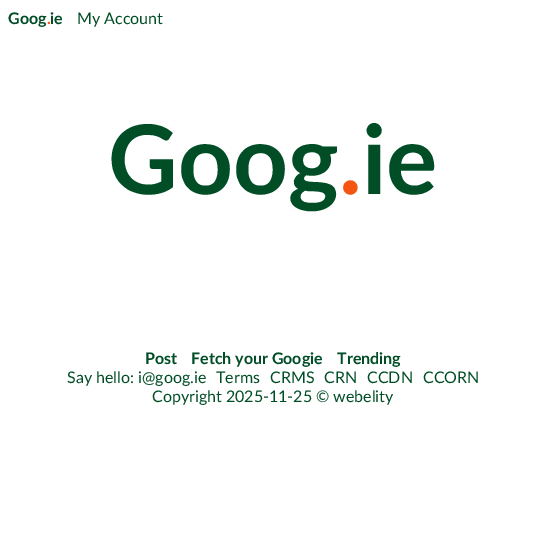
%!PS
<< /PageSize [556 537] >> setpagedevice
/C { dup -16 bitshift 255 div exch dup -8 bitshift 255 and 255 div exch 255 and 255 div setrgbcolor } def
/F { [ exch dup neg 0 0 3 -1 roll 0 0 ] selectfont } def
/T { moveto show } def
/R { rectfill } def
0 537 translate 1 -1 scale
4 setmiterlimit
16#FFFFFF C
0 0 556 537 R
/Lato-Bold 16 F
16#004D26 C
(Goog ie) 8 24 T
/Lato-Regular 16 F
(My Account) 77 24 T
/Lato-Bold 16 F
16#F55513 C
(.) 47 24 T
/Lato-Bold 96 F
16#004D26 C
(Goog) 108 194 T
16#F55513 C
(.) 339 194 T
16#004D26 C
(ie) 362 194 T
/Lato-Bold 16 F
(Post) 145 364 T
(Fetch your Googie) 191 364 T
(Trending) 337 364 T
/Lato-Regular 16 F
(Say hello: i@goog.ie) 67 383 T
(Terms) 216 383 T
(CRMS) 270 383 T
(CRN) 324 383 T
(CCDN) 367 383 T
(CCORN) 423 383 T
(Copyright 2025-11-25 © webelity) 152 402 T
showpage
